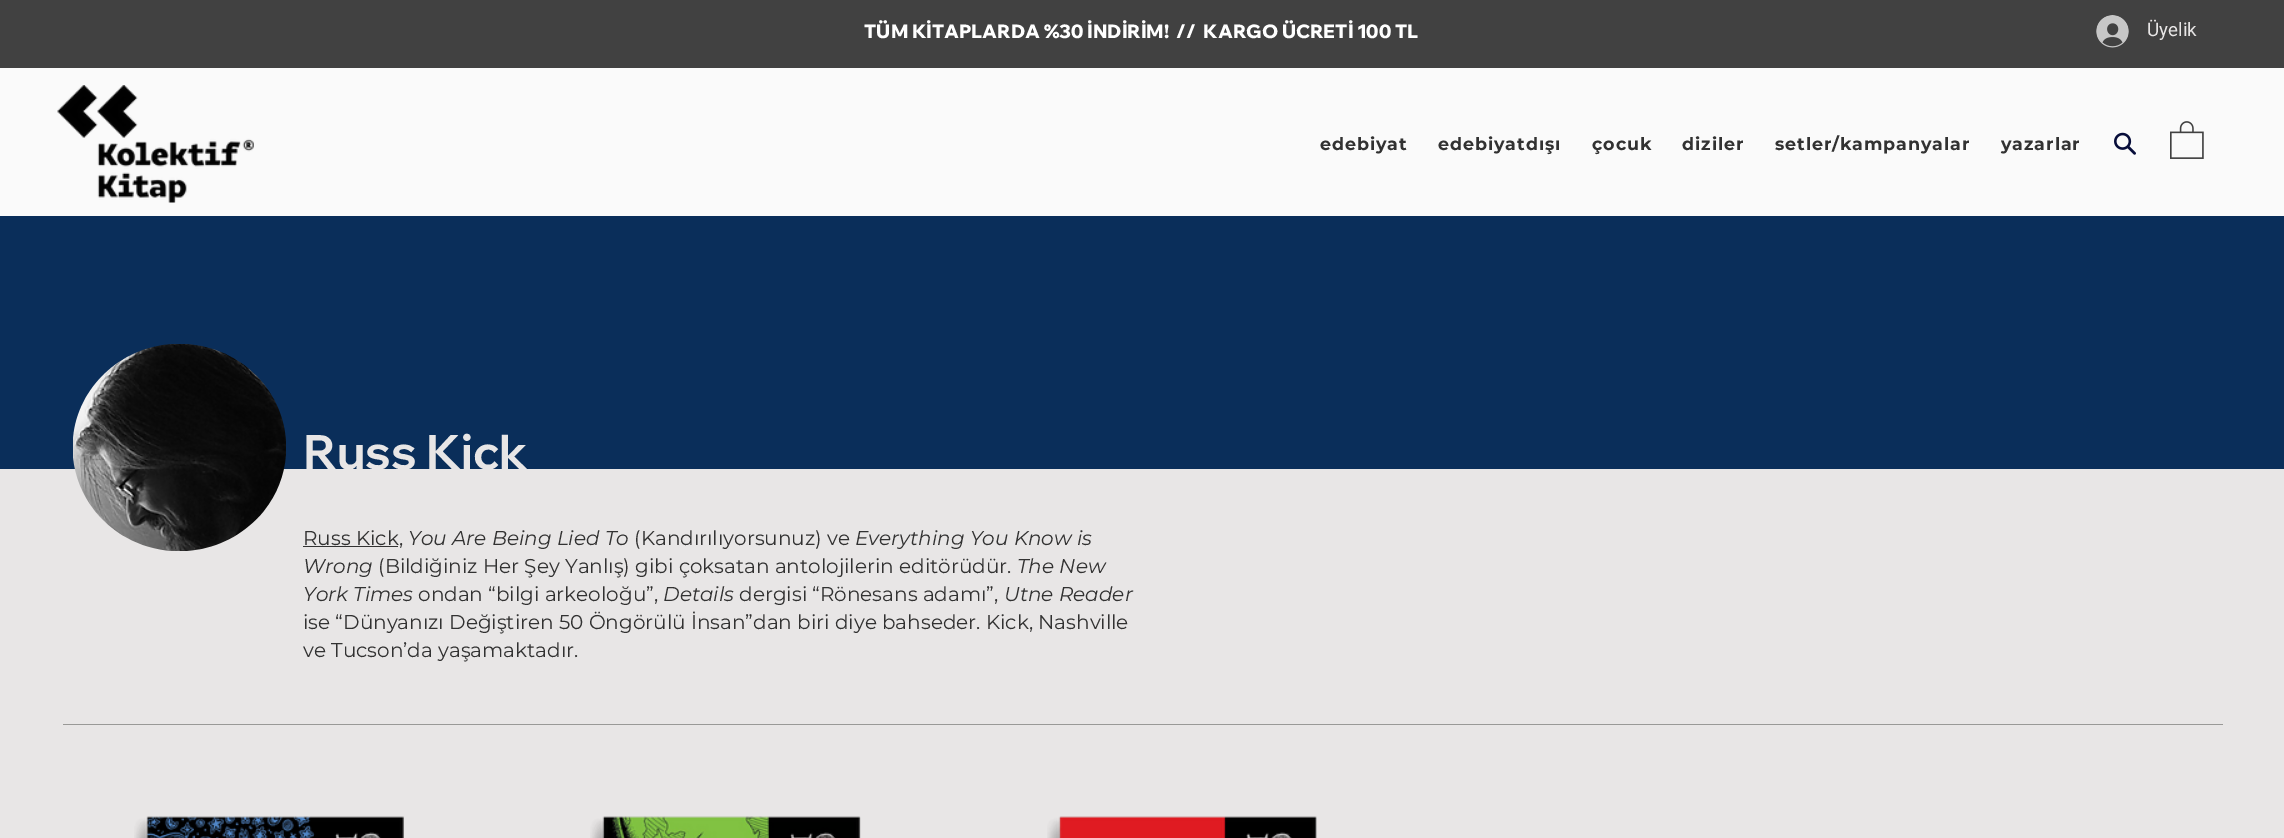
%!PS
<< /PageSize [2284 838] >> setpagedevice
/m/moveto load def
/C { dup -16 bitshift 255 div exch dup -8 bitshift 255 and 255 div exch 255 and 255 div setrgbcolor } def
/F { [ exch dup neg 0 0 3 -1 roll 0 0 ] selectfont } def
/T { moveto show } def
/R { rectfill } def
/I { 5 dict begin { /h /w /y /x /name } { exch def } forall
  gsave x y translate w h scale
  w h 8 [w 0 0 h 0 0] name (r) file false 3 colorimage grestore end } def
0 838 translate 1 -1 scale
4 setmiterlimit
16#E8E6E6 C
0 0 2284 838 R
16#414141 C
0 0 2284 68 R
/WixMadeforDisplay-ExtraBold 18.75 F
16#FFFFFF C
(TÜM KİTAPLARDA %30 İNDİRİM!  //  KARGO ÜCRETİ 100 TL) 864 38 T
(1.rgb) 2096 15 33 33 I
/Roboto-Regular 18.75 F
16#E8E6E6 C
(Üyelik) 2147 36 T
16#FAFAFA C
0 68 2284 148 R
(2.rgb) 57 85 197 118 I
/Montserrat-Bold 17.5 F
16#323232 C
1320 150 m .9 0 (edebiyat) ashow
1438 150 m .9 0 (edebiyatdışı) ashow
1592 150 m .9 0 (çocuk) ashow
1682 150 m .9 0 (diziler) ashow
1775 150 m .9 0 (setler/kampanyalar) ashow
2001 150 m .9 0 (yazarlar) ashow
(3.rgb) 2114 132 22 23 I
(4.rgb) 2170 121 34 38 I
16#0A2E5A C
0 216 2284 253 R
(5.rgb) 73 344 213 207 I
/WixMadeforDisplay-Bold 47.5 F
16#E8E6E6 C
(Russ Kick) 303 469 T
16#323232 C
303 546 95 1 R
/Montserrat-Regular 20 F
(Russ Kick,) 303 545 T
/Montserrat-Italic 20 F
(You Are Being Lied To) 408 545 T
/Montserrat-Regular 20 F
(\(Kandırılıyorsunuz\) ve) 634 545 T
/Montserrat-Italic 20 F
(Everything You Know is) 855 545 T
(Wrong) 303 573 T
/Montserrat-Regular 20 F
(\(Bildiğiniz Her Şey Yanlış\) gibi çoksatan antolojilerin editörüdür.) 378 573 T
/Montserrat-Italic 20 F
(The New) 1017 573 T
(York Times) 303 601 T
/Montserrat-Regular 20 F
(ondan “bilgi arkeoloğu”,) 418 601 T
/Montserrat-Italic 20 F
(Details) 663 601 T
/Montserrat-Regular 20 F
(dergisi “Rönesans adamı”,) 739 601 T
/Montserrat-Italic 20 F
(Utne Reader) 1004 601 T
/Montserrat-Regular 20 F
(ise “Dünyanızı Değiştiren 50 Öngörülü İnsan”dan biri diye bahseder. Kick, Nashville) 303 629 T
(ve Tucson’da yaşamaktadır.) 303 657 T
16#999997 C
63 724 2160 1 R
(6.rgb) 134 816 270 22 I
(7.rgb) 590 816 271 22 I
(8.rgb) 1047 816 270 22 I
showpage
